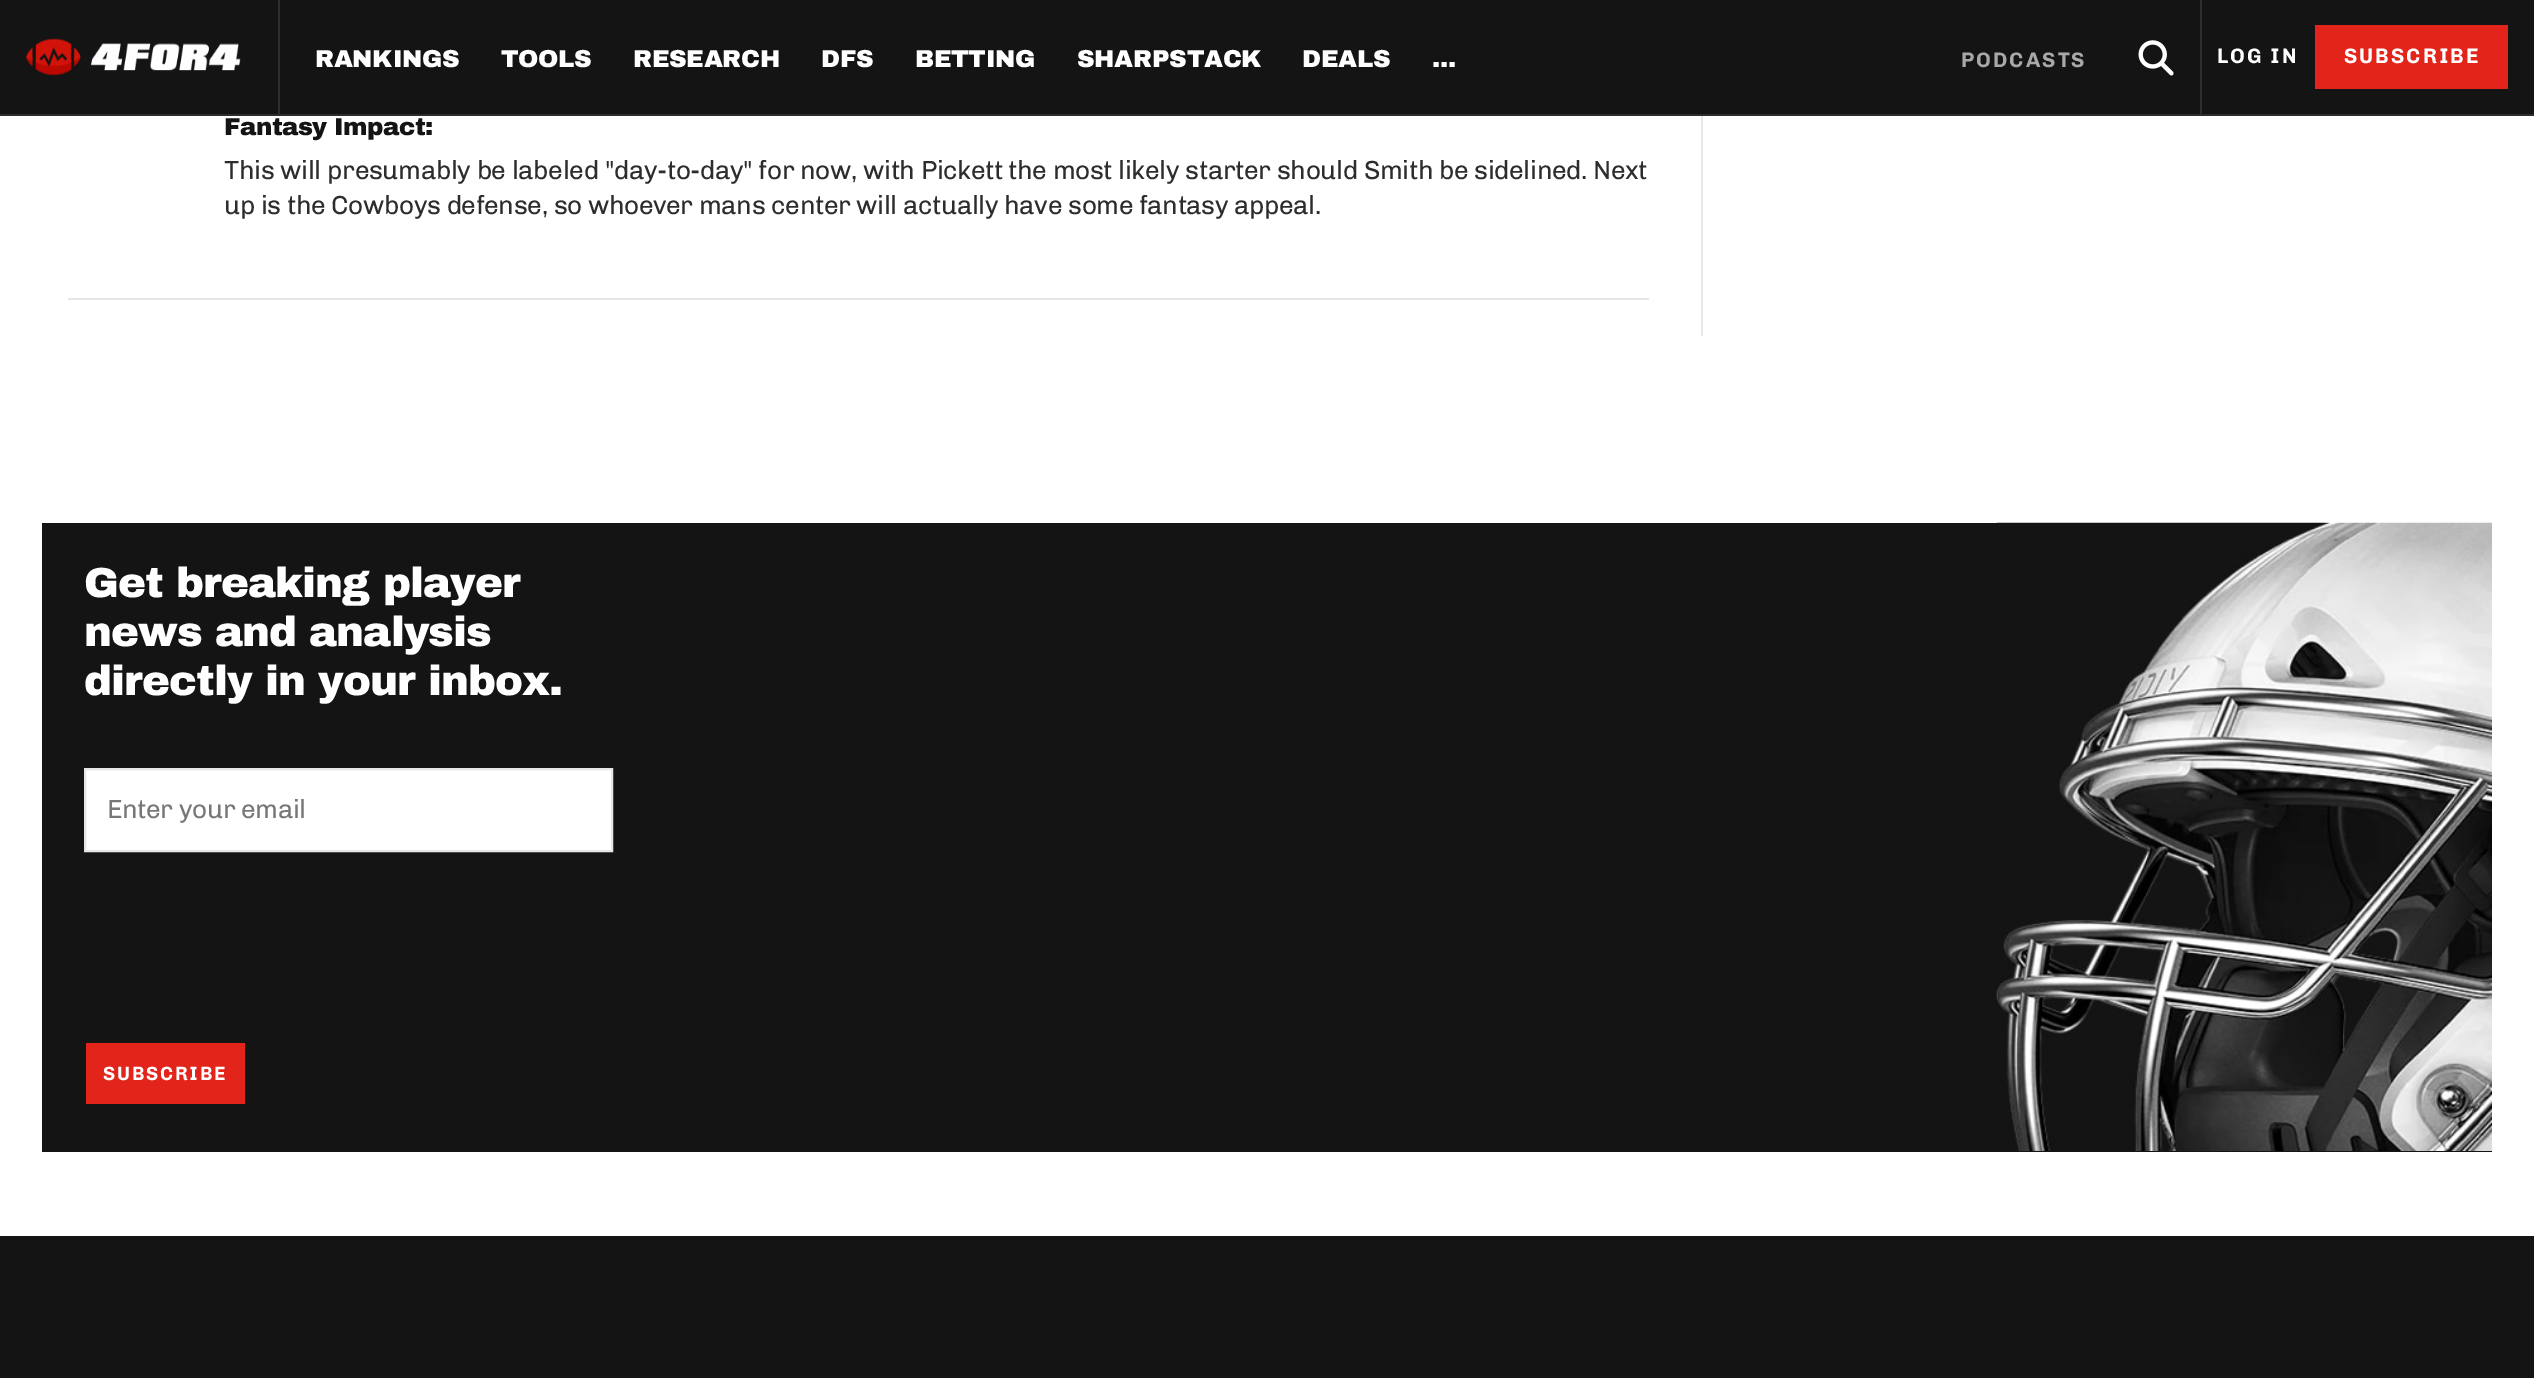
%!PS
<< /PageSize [2534 1378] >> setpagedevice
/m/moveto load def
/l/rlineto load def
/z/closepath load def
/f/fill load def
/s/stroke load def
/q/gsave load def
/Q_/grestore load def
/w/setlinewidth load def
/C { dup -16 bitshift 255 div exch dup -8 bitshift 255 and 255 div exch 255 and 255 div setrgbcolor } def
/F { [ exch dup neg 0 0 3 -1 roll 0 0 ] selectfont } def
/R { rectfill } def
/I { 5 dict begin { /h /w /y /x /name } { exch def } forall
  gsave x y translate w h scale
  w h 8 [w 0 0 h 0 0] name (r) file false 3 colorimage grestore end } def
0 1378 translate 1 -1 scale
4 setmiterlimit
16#FFFFFF C
0 0 2534 1378 R
16#141414 C
0 0 2534 114 R
16#2D2D2D C
0 114 2534 2 R
(1.rgb) 26 38 215 38 I
278 0 2 114 R
/archivo-Black 24.5 F
16#FFFFFF C
315 67 m -.35 0 (RANKINGS) ashow
501 67 m -.35 0 (TOOLS) ashow
633 67 m -.35 0 (RESEARCH) ashow
821 67 m -.35 0 (DFS) ashow
915 67 m -.35 0 (BETTING) ashow
1077 67 m -.35 0 (SHARPSTACK) ashow
1302 67 m -.35 0 (DEALS) ashow
1432 67 m -.35 0 (...) ashow
/chivo-Bold 21 F
16#A6A8AA C
1961 67 m 2 0 (PODCASTS) ashow
(2.rgb) 2138 40 36 36 I
16#2D2D2D C
2200 0 2 116 R
16#FFFFFF C
2217 63 m 2 0 (LOG IN) ashow
16#E3241A C
2315 25 193 64 R
16#FFFFFF C
2344 63 m 2 0 (SUBSCRIBE) ashow
/archivo-Black 24.5 F
16#141414 C
224 135 m -.5 0 (Fantasy Impact:) ashow
/chivo-Regular 26.25 F
16#2D2D2D C
224 179 m -.35 0 (This will presumably be labeled "day-to-day" for now, with Pickett the most likely starter should Smith be sidelined. Next) ashow
224 214 m -.35 0 (up is the Cowboys defense, so whoever mans center will actually have some fantasy appeal.) ashow
16#E7E7E7 C
68 298 1581 2 R
1701 116 2 220 R
16#141414 C
42 523 2450 629 R
(3.rgb) 1996 522 496 629 I
/archivo-Black 42 F
16#FFFFFF C
84 597 m -.9 0 (Get breaking player) ashow
84 646 m -.9 0 (news and analysis) ashow
84 695 m -.9 0 (directly in your inbox.) ashow
85 769 m 527 0 l 0 82 l -527 0 l z q f Q_
16#E7E7E7 C
2 w
s
/chivo-Regular 26.25 F
16#757779 C
107 818 m -.35 0 (Enter your email) ashow
16#E3241A C
86 1043 159 61 R
/chivo-Bold 19.25 F
16#FFFFFF C
103 1080 m 1.75 0 (SUBSCRIBE) ashow
16#141414 C
0 1236 2534 142 R
showpage
